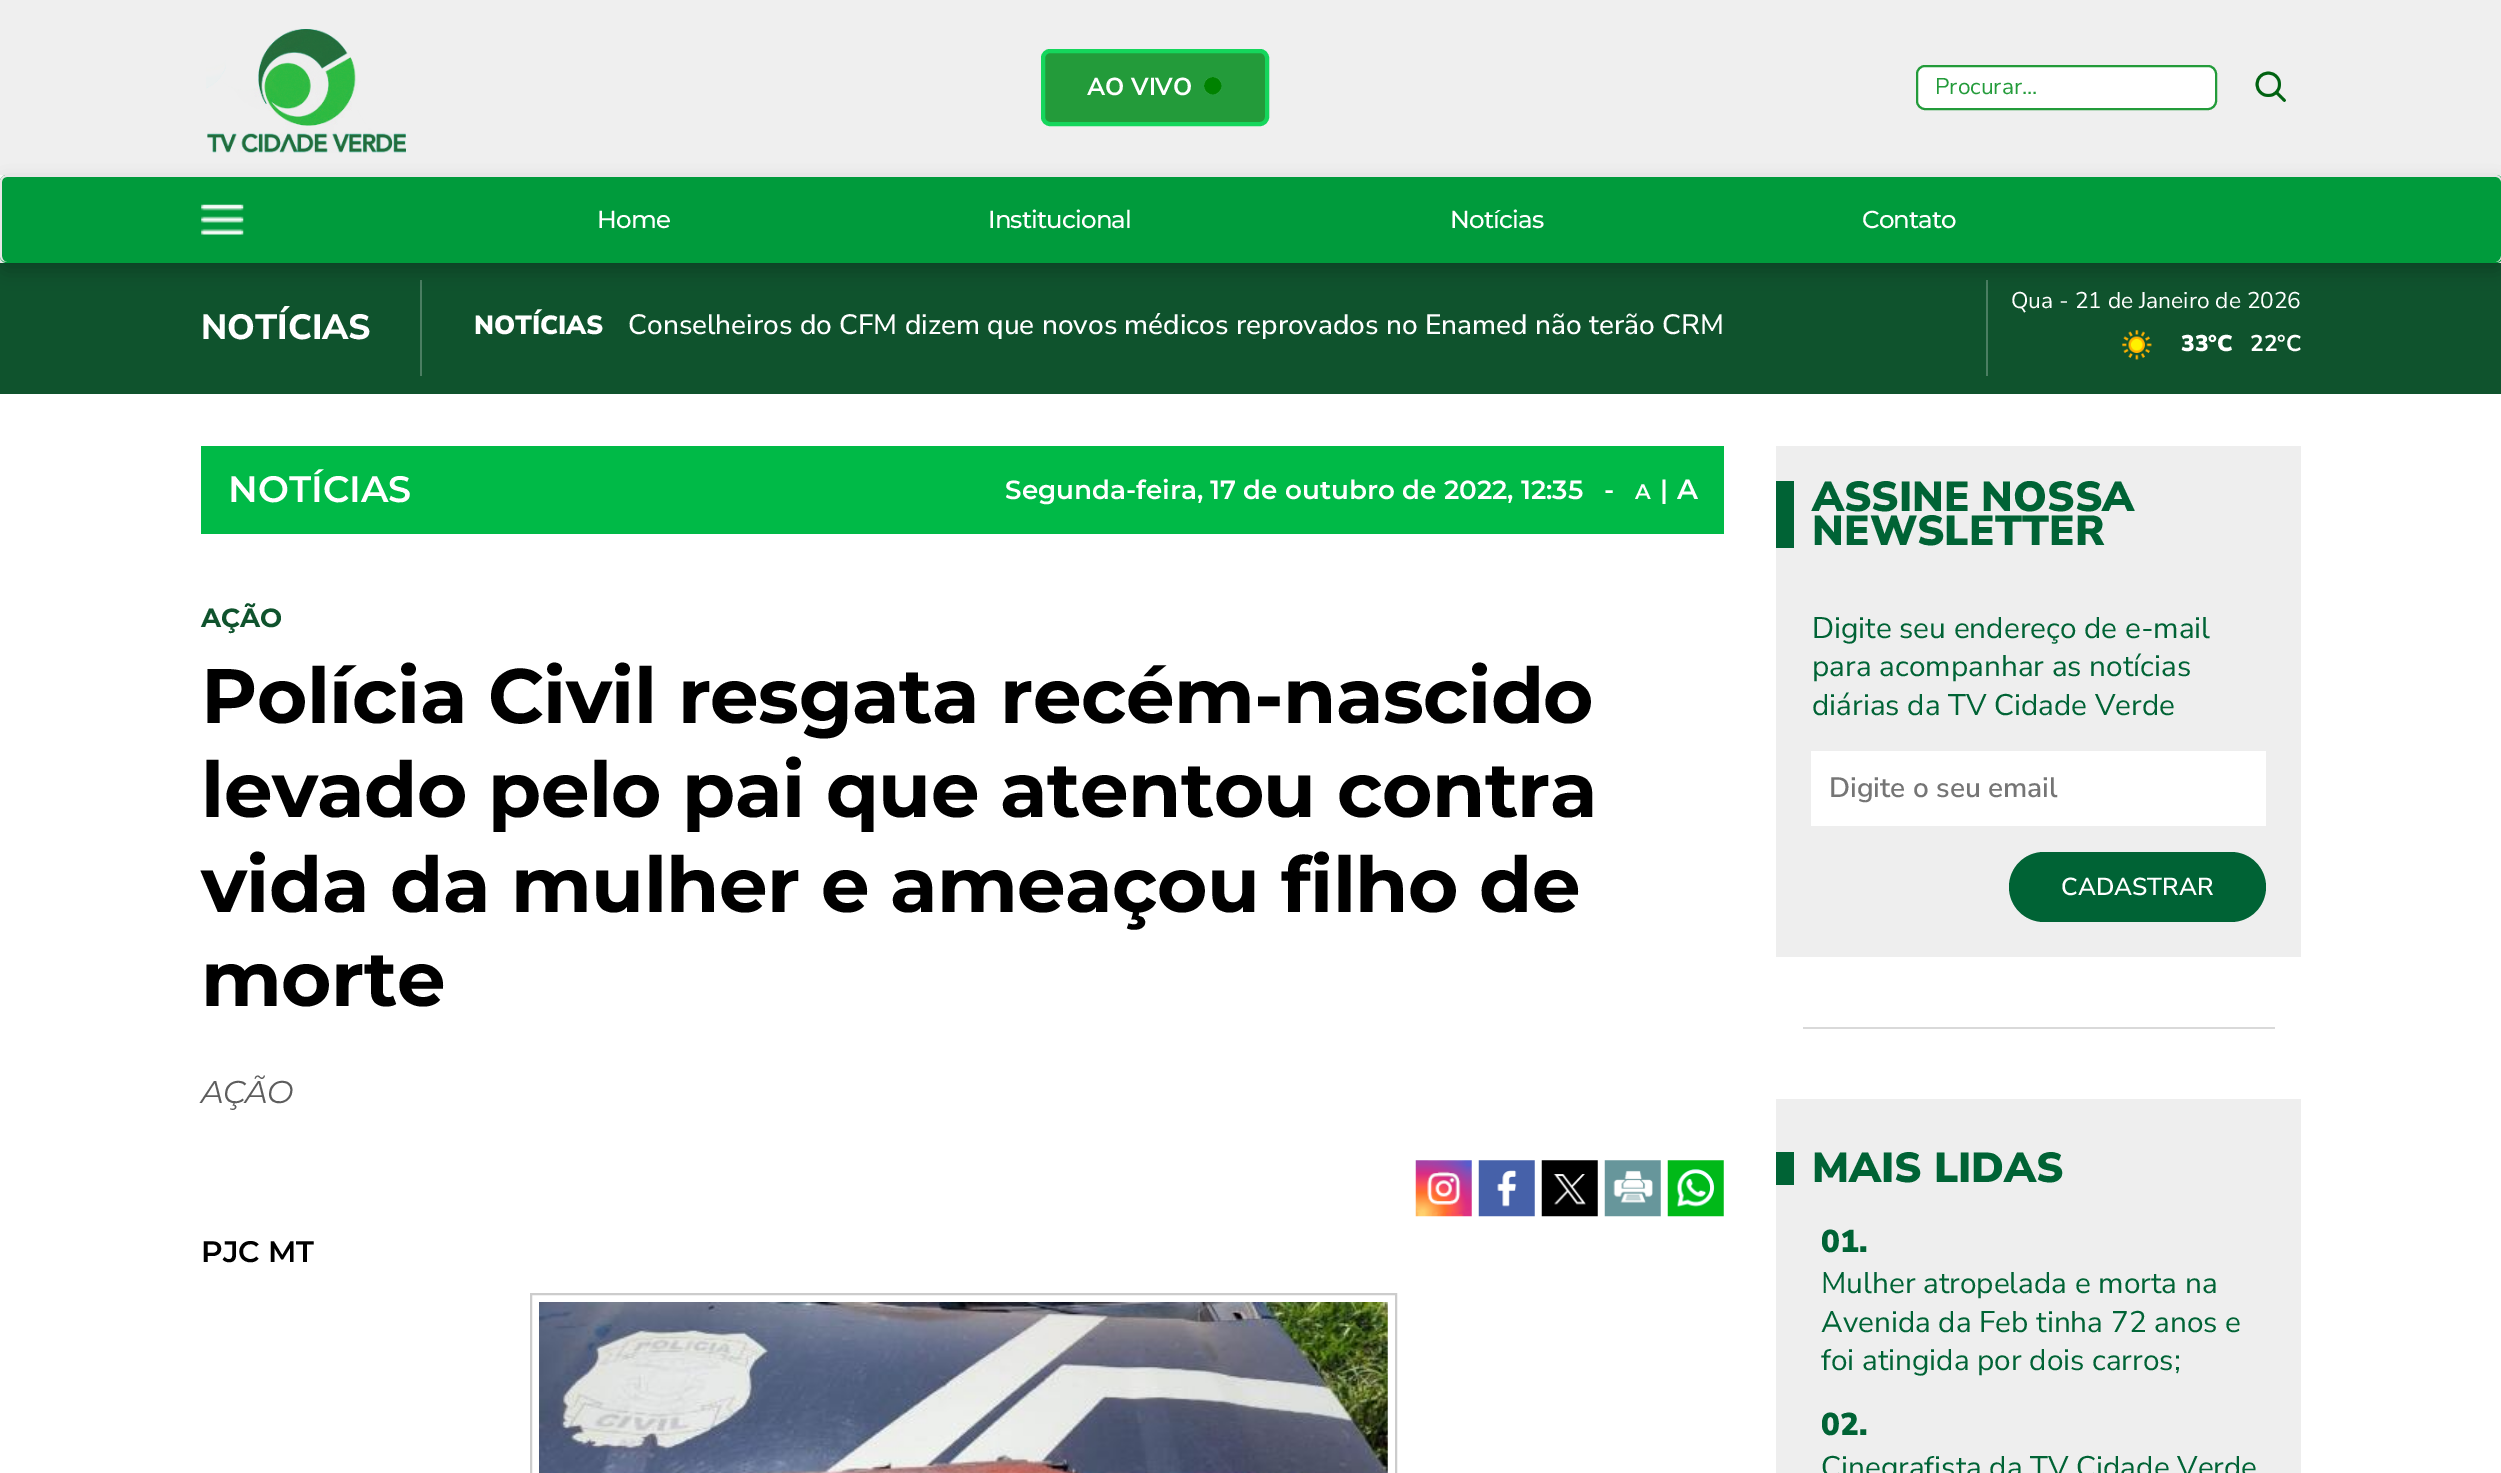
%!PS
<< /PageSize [2501 1473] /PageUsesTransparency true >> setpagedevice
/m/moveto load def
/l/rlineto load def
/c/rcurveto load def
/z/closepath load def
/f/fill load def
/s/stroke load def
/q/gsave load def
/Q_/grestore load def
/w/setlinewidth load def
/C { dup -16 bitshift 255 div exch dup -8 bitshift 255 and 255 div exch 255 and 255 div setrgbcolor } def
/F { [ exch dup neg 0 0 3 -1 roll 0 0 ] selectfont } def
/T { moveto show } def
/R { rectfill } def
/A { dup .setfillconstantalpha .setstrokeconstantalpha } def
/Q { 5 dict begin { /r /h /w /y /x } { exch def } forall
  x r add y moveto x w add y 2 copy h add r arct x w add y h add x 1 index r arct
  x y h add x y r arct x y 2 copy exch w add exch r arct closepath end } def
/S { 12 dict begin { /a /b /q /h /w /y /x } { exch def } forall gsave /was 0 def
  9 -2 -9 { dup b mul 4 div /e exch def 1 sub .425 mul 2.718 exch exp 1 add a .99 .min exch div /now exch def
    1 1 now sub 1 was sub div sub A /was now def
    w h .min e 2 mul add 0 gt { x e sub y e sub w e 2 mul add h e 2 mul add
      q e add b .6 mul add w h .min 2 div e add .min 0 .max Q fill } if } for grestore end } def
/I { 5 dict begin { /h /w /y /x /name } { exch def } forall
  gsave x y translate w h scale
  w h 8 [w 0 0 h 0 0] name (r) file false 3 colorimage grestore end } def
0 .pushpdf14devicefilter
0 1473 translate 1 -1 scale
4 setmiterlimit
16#FFFFFF C
0 0 2501 1473 R
16#EFEFEF C
0 0 2501 175 R
(1.rgb) 206 28 200 125 I
16#239B3A C
1043 51 224 73 7 Q q f Q_
16#15D65C C
4 w
s
/NunitoSans-Bold 24.5 F
16#FFFFFF C
(AO VIVO) 1087 95 T
(2.rgb) 1204 77 18 18 I
1917 66 299 43 8 Q q f Q_
16#239B3A C
2 w
s
/NunitoSans-Regular 22.75 F
(Procurar...) 1935 94 T
(3.rgb) 2255 71 31 31 I
16#0F532D C
0 263 2501 131 R
16#4B7E62 C
420 280 2 96 R
1986 280 2 96 R
16#000000 C
0 184 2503 87 7 9 .2 S
16#009B3C C
0 175 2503 88 7 Q f
16#E7E7E7 C
7 175 m 2489 0 l 3 0 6 3 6 7 c 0 74 l 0 3 -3 6 -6 6 c -2489 0 l -4 0 -7 -3 -7 -6 c 0 -74 l 0 -4 3 -7 7 -7 c z 7 177 m 2489 0 l 2 0 5 2 5 5 c 0 74 l 0 3 -3 6 -5 6 c -2489 0 l -3 0 -5 -3 -5 -6 c 0 -74 l 0 -3 2 -5 5 -5 c z eofill
(4.rgb) 201 204 43 31 I
/Montserrat-Medium 24.5 F
16#FFFFFF C
597 228 m -.9 0 (Home) ashow
988 228 m -.9 0 (Institucional) ashow
1450 228 m -.9 0 (Notícias) ashow
1862 228 m -.9 0 (Contato) ashow
/NunitoSans-ExtraBold 35 F
(NOTÍCIAS) 201 339 T
/NunitoSans-Black 26.25 F
(NOTÍCIAS) 474 334 T
/NunitoSans-Medium 28 F
(Conselheiros do CFM dizem que novos médicos reprovados no Enamed não terão CRM) 628 334 T
/NunitoSans-Regular 22.75 F
(Qua - 21 de Janeiro de 2026) 2011 308 T
(5.rgb) 2122 330 30 30 I
/NunitoSans-Black 22.75 F
(33°C) 2181 351 T
/NunitoSans-Bold 22.75 F
(22°C) 2250 351 T
16#00BA47 C
201 446 1523 88 R
/Montserrat-SemiBold 36.75 F
16#FFFFFF C
(NOTÍCIAS) 228 502 T
/Montserrat-SemiBold 26.25 F
(Segunda-feira, 17 de outubro de 2022, 12:35) 1005 499 T
(-) 1604 499 T
/Montserrat-SemiBold 21 F
(A) 1635 499 T
/Montserrat-SemiBold 26.25 F
(|) 1660 499 T
/Montserrat-SemiBold 28 F
(A) 1677 499 T
/Montserrat-Bold 26.25 F
16#0F532D C
(AÇÃO) 201 627 T
/Montserrat-Bold 77 F
16#000000 C
201 723 m -.55 0 (Polícia Civil resgata recém-nascido) ashow
201 817 m -.55 0 (levado pelo pai que atentou contra) ashow
201 912 m -.55 0 (vida da mulher e ameaçou filho de) ashow
201 1006 m -.55 0 (morte) ashow
/Montserrat-Italic 31.5 F
16#5D5D5D C
201 1103 m -.5 0 (AÇÃO) ashow
(6.rgb) 1415 1160 57 57 I
(7.rgb) 1478 1160 57 57 I
(8.rgb) 1541 1160 57 57 I
(9.rgb) 1604 1160 57 57 I
(10.rgb) 1667 1160 57 57 I
/Montserrat-SemiBold 29.75 F
16#000000 C
(PJC MT) 201 1262 T
16#CCCCCC C
531 1294 865 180 rectstroke
(11.rgb) 539 1302 849 171 I
16#EEEEEE C
1776 446 525 511 R
16#006335 C
1776 481 18 67 R
/NunitoSans-Black 42 F
(ASSINE NOSSA) 1812 511 T
(NEWSLETTER) 1812 545 T
/NunitoSans-Regular 29.75 F
(Digite seu endereço de e-mail) 1812 638 T
(para acompanhar as notícias) 1812 676 T
(diárias da TV Cidade Verde) 1812 715 T
16#FFFFFF C
1811 751 455 75 R
/NunitoSans-SemiBold 28 F
16#757575 C
(Digite o seu email) 1829 797 T
16#006335 C
2009 852 257 70 35 Q f
/NunitoSans-SemiBold 24.5 F
16#FFFFFF C
(CADASTRAR) 2061 895 T
16#D9D9D9 C
1803 1027 472 2 R
16#EEEEEE C
1776 1099 525 374 R
16#006335 C
1776 1152 18 33 R
/NunitoSans-Black 42 F
(MAIS LIDAS) 1812 1182 T
/NunitoSans-Black 31.5 F
(01.) 1821 1252 T
/NunitoSans-Regular 29.75 F
(Mulher atropelada e morta na) 1821 1293 T
(Avenida da Feb tinha 72 anos e) 1821 1332 T
(foi atingida por dois carros;) 1821 1370 T
/NunitoSans-Black 31.5 F
(02.) 1821 1435 T
/NunitoSans-Regular 29.75 F
(Cinegrafista da TV Cidade Verde) 1821 1477 T
.poppdf14devicefilter showpage
